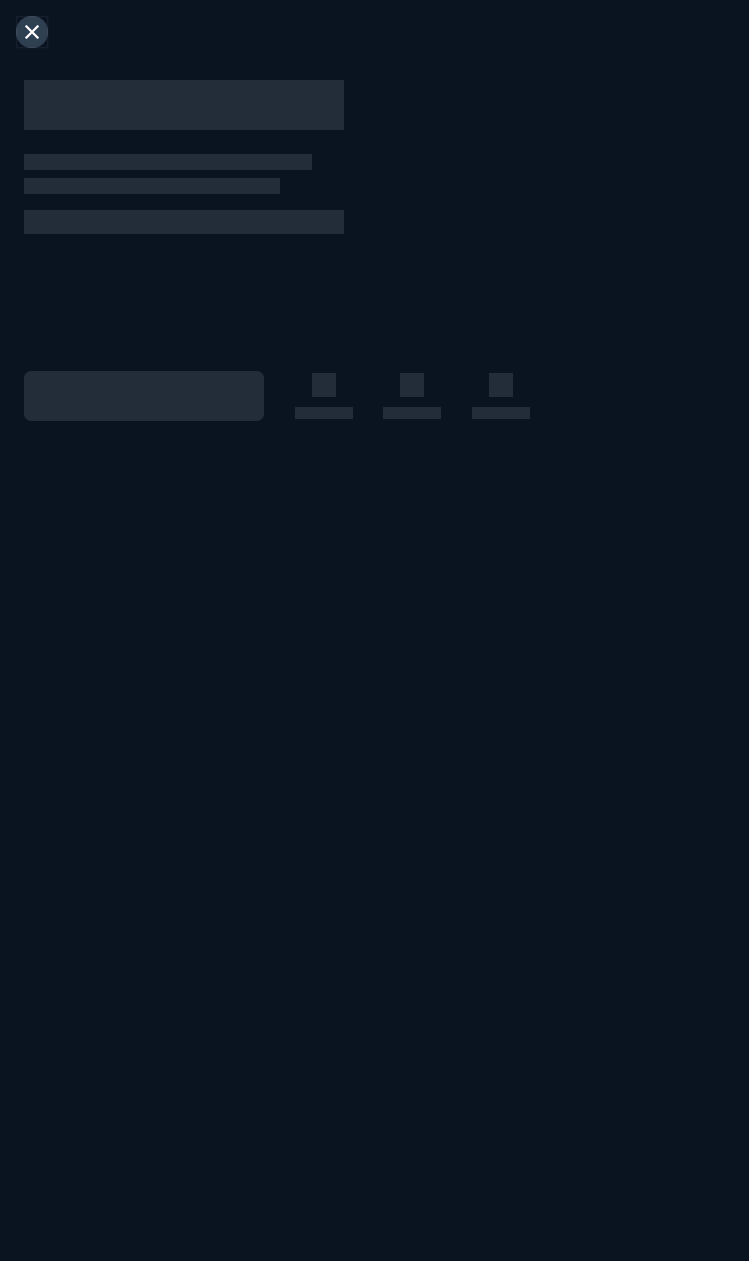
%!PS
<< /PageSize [749 1261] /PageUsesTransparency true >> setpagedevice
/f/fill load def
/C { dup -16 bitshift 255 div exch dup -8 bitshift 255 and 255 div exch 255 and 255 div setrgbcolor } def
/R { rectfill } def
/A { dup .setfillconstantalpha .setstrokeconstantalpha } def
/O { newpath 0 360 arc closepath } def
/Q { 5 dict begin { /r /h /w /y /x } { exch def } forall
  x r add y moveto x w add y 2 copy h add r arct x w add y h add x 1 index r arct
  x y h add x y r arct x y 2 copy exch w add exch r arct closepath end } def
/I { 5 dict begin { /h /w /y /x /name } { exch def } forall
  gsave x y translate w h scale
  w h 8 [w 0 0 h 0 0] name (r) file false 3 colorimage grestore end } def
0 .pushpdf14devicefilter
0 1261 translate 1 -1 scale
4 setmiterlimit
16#0A1421 C
0 0 749 1261 R
16#304053 C
32 32 16 O f
0.05 A
16#FFFFFF C
16.5 16.5 31 31 rectstroke
1 A
(1.rgb) 25 25 14 14 I
16#232D3A C
24 80 320 50 R
24 154 288 16 R
24 178 256 16 R
24 210 320 24 R
24 371 240 50 8 Q f
312 373 24 24 R
295 407 58 12 R
400 373 24 24 R
383 407 58 12 R
489 373 24 24 R
472 407 58 12 R
.poppdf14devicefilter showpage
